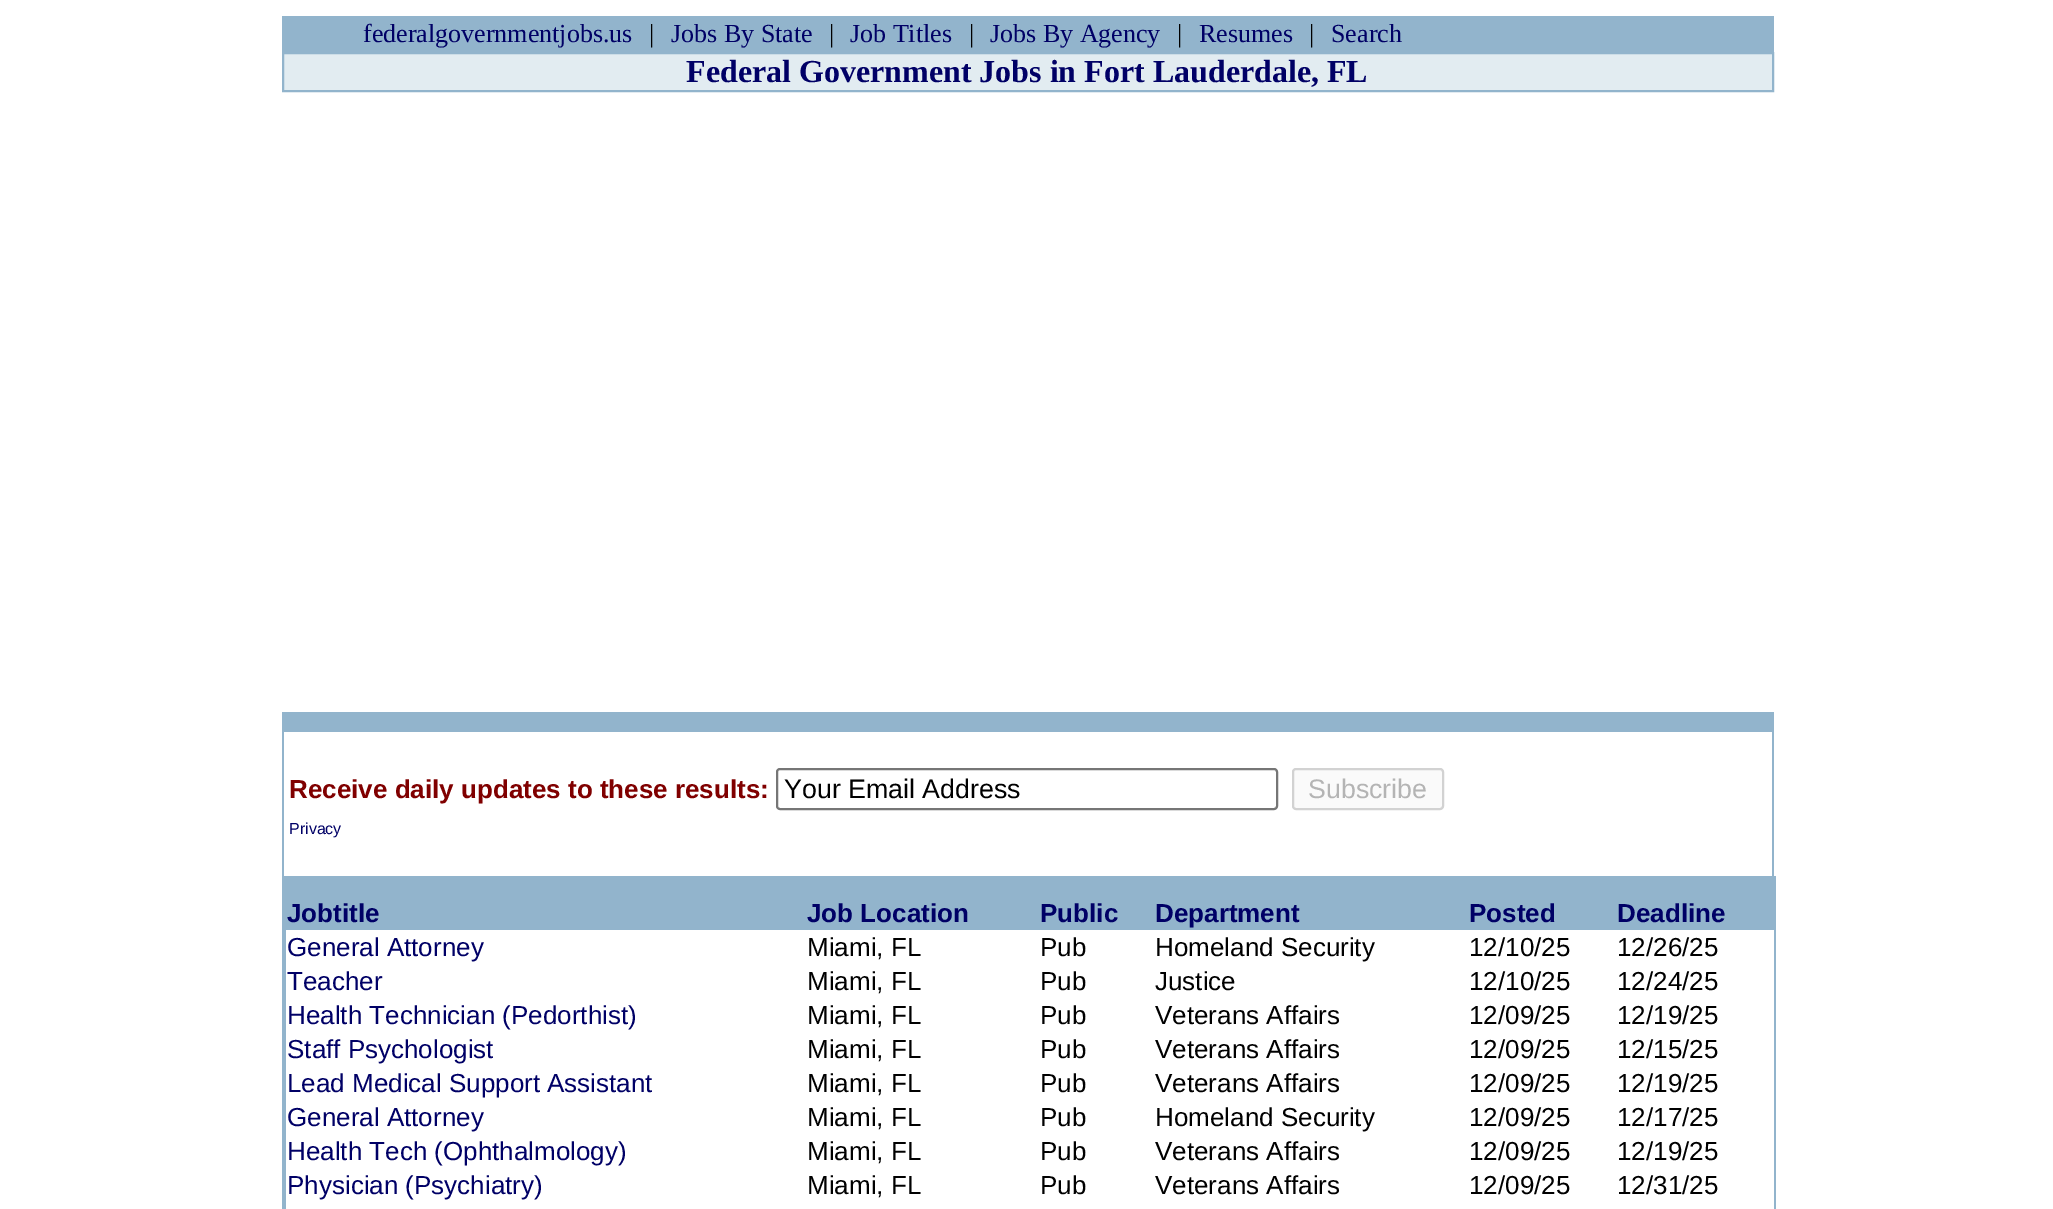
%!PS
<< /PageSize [2053 1209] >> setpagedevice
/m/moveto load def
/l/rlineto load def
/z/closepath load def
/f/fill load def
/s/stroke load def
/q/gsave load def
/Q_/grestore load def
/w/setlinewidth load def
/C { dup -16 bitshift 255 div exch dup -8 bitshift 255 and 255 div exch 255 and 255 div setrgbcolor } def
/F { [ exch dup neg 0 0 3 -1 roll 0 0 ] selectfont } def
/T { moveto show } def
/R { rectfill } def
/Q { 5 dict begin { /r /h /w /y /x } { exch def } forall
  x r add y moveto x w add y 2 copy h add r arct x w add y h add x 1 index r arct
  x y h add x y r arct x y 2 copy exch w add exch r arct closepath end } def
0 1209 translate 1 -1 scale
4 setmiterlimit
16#FFFFFF C
0 0 2053 1209 R
16#92B4CC C
282 16 1492 36 R
/LiberationSerif-Regular 26 F
16#000066 C
(federalgovernmentjobs.us) 363 42 T
16#000000 C
(|) 649 42 T
16#000066 C
(Jobs By State) 671 42 T
16#000000 C
(|) 829 42 T
16#000066 C
(Job Titles) 850 42 T
16#000000 C
(|) 969 42 T
16#000066 C
(Jobs By Agency) 990 42 T
16#000000 C
(|) 1177 42 T
16#000066 C
(Resumes) 1199 42 T
16#000000 C
(|) 1309 42 T
16#000066 C
(Search) 1331 42 T
16#E2ECF1 C
283 53 m 1490 0 l 0 38 l -1490 0 l z q f Q_
16#92B4CC C
2 w
s
/LiberationSerif-Bold 32 F
16#000066 C
(Federal Government Jobs in Fort Lauderdale, FL) 686 82 T
16#92B4CC C
284 712 1488 20 R
1772 712 2 164 R
282 712 2 497 R
/LiberationSans-Bold 26 F
16#800000 C
(Receive daily updates to these results:) 289 798 T
16#767676 C
777 769 500 40 3 Q s
/LiberationSans-Regular 26.75 F
16#000000 C
(Your Email Address) 784 798 T
16#FAFAFA C
1293 769 150 40 3 Q q f Q_
16#D2D2D2 C
s
16#B4B4B4 C
(Subscribe) 1308 798 T
/LiberationSans-Regular 16 F
16#000066 C
(Privacy) 289 834 T
16#92B4CC C
286 876 1488 20 R
1774 876 2 333 R
284 876 2 333 R
286 896 1488 34 R
/LiberationSans-Bold 26 F
16#000066 C
(Jobtitle) 287 922 T
(Job Location) 807 922 T
(Public) 1040 922 T
(Department) 1155 922 T
(Posted) 1469 922 T
(Deadline) 1617 922 T
/LiberationSans-Regular 26 F
(General Attorney) 287 956 T
16#000000 C
(Miami, FL) 807 956 T
(Pub) 1040 956 T
(Homeland Security) 1155 956 T
(12/10/25) 1469 956 T
(12/26/25) 1617 956 T
16#000066 C
(Teacher) 287 990 T
16#000000 C
(Miami, FL) 807 990 T
(Pub) 1040 990 T
(Justice) 1155 990 T
(12/10/25) 1469 990 T
(12/24/25) 1617 990 T
16#000066 C
(Health Technician \(Pedorthist\)) 287 1024 T
16#000000 C
(Miami, FL) 807 1024 T
(Pub) 1040 1024 T
(Veterans Affairs) 1155 1024 T
(12/09/25) 1469 1024 T
(12/19/25) 1617 1024 T
16#000066 C
(Staff Psychologist) 287 1058 T
16#000000 C
(Miami, FL) 807 1058 T
(Pub) 1040 1058 T
(Veterans Affairs) 1155 1058 T
(12/09/25) 1469 1058 T
(12/15/25) 1617 1058 T
16#000066 C
(Lead Medical Support Assistant) 287 1092 T
16#000000 C
(Miami, FL) 807 1092 T
(Pub) 1040 1092 T
(Veterans Affairs) 1155 1092 T
(12/09/25) 1469 1092 T
(12/19/25) 1617 1092 T
16#000066 C
(General Attorney) 287 1126 T
16#000000 C
(Miami, FL) 807 1126 T
(Pub) 1040 1126 T
(Homeland Security) 1155 1126 T
(12/09/25) 1469 1126 T
(12/17/25) 1617 1126 T
16#000066 C
(Health Tech \(Ophthalmology\)) 287 1160 T
16#000000 C
(Miami, FL) 807 1160 T
(Pub) 1040 1160 T
(Veterans Affairs) 1155 1160 T
(12/09/25) 1469 1160 T
(12/19/25) 1617 1160 T
16#000066 C
(Physician \(Psychiatry\)) 287 1194 T
16#000000 C
(Miami, FL) 807 1194 T
(Pub) 1040 1194 T
(Veterans Affairs) 1155 1194 T
(12/09/25) 1469 1194 T
(12/31/25) 1617 1194 T
showpage
